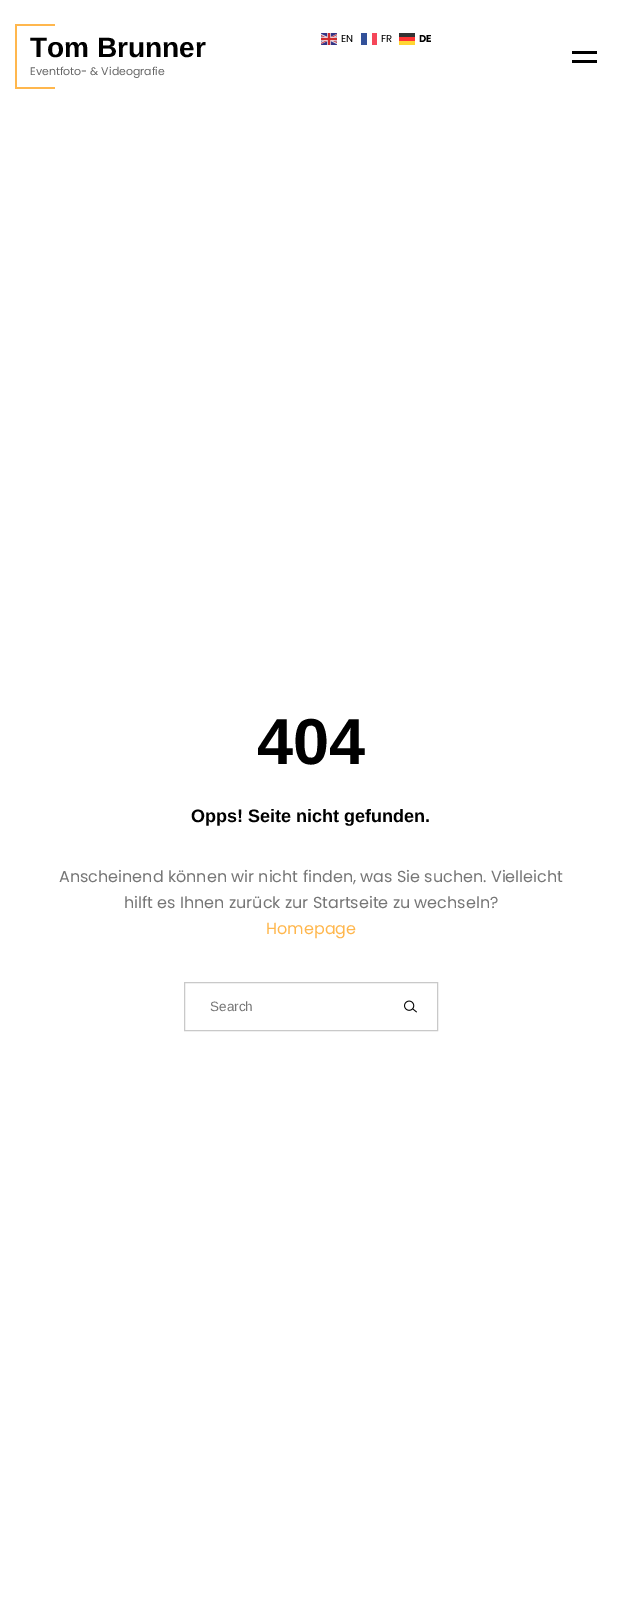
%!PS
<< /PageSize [622 1601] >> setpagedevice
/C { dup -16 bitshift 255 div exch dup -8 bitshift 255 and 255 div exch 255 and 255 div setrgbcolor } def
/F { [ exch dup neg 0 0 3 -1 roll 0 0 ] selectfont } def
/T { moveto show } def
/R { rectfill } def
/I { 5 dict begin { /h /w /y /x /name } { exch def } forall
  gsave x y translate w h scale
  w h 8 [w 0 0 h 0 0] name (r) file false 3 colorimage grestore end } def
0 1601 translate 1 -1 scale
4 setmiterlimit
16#FFFFFF C
0 0 622 1601 R
16#FFB74D C
15 24 40 2 R
15 87 40 2 R
15 24 2 65 R
/LiberationSans-Bold 28 F
16#000000 C
(Tom Brunner) 30 57 T
/Poppins-Regular 11 F
16#666666 C
(Eventfoto- & Videografie) 30 75 T
(1.rgb) 321 33 16 12 I
/Poppins-Regular 10 F
16#000000 C
(EN) 341 42 T
(FR) 381 42 T
16#335199 C
361 33 6 12 R
16#F54659 C
372 33 5 12 R
/Poppins-Bold 10 F
16#000000 C
(DE) 419 42 T
16#FFD633 C
399 41 16 4 R
16#333333 C
399 33 16 4 R
16#FF3333 C
399 37 16 4 R
16#000000 C
572 51 25 3 R
572 60 25 3 R
/LiberationSans-Bold 65 F
(404) 257 764 T
/LiberationSans-Bold 18 F
(Opps! Seite nicht gefunden.) 191 822 T
/Poppins-Regular 16 F
16#767676 C
(Anscheinend können wir nicht finden, was Sie suchen. Vielleicht) 59 882 T
(hilft es Ihnen zurück zur Startseite zu wechseln?) 124 908 T
16#FFB74D C
(Homepage) 266 934 T
(2.rgb) 404 1000 13 13 I
16#C9C9C9 C
184.5 982.5 253 48 rectstroke
/LiberationSans-Regular 13.5 F
16#767676 C
(Search) 210 1011 T
showpage
